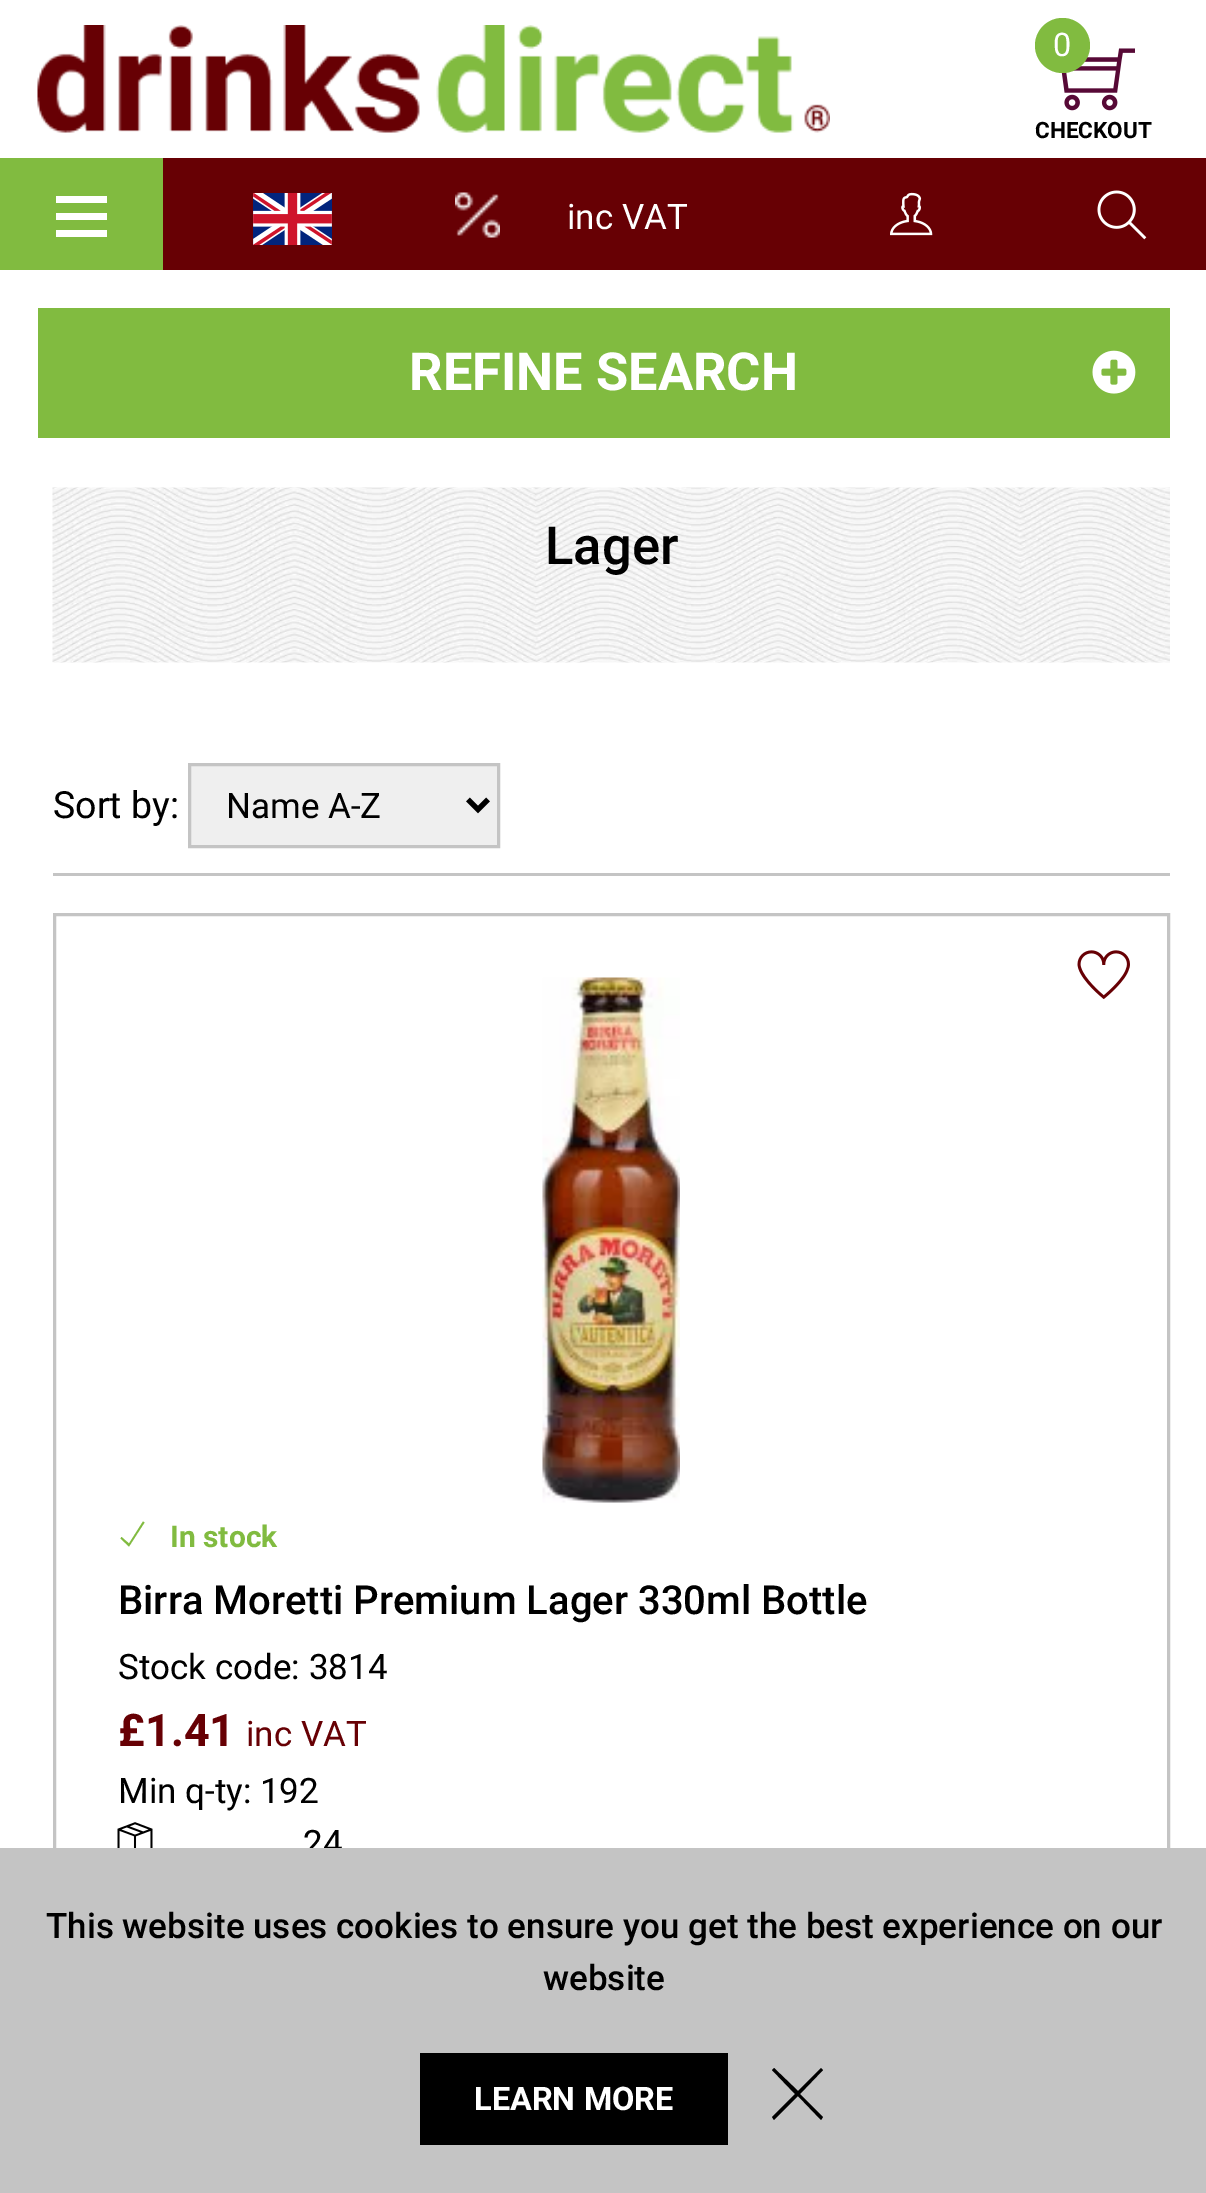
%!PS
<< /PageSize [1206 2193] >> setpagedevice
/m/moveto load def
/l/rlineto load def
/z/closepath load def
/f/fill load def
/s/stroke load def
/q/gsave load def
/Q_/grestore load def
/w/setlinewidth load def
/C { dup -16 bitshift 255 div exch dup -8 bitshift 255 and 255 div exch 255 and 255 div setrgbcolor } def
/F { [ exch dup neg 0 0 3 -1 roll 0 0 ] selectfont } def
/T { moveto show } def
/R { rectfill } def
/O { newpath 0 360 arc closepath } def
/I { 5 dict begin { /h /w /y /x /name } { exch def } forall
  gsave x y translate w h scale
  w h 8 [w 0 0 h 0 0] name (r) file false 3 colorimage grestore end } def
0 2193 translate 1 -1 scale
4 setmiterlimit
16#FFFFFF C
0 0 1206 2193 R
(1.rgb) 37 25 793 108 I
(2.rgb) 1061 48 74 63 I
16#81BB40 C
1062.5 45.5 27.5 O f
/Roboto-Regular 32.5 F
16#FFFFFF C
(0) 1053 56 T
/Roboto-Bold 22.5 F
16#000000 C
(CHECKOUT) 1035 138 T
16#81BB40 C
0 158 163 112 R
16#FFFFFF C
107 196 m 0 7 l -51 0 l 0 -7 l z 56 220 m 51 0 l 0 -7 l -51 0 l z 56 237 m 51 0 l 0 -7 l -51 0 l z f
16#670004 C
163 158 1043 112 R
(3.rgb) 253 193 79 52 I
(4.rgb) 455 192 45 46 I
/Roboto-Regular 35 F
16#FFFFFF C
(inc VAT) 567 229 T
(5.rgb) 890 192 43 44 I
(6.rgb) 1097 190 50 50 I
16#81BB40 C
38 308 1132 130 R
/Roboto-Bold 52.5 F
16#FFFFFF C
(REFINE SEARCH) 409 390 T
(7.rgb) 1092 350 44 44 I
(8.rgb) 52 487 1118 176 I
/Roboto-Medium 52.5 F
16#000000 C
(Lager) 545 564 T
16#C4C4C4 C
53 873 1117 3 R
/Roboto-Regular 37.5 F
16#000000 C
(Sort by:) 53 818 T
16#EFEFEF C
189.5 764.5 m 309 0 l 0 82 l -309 0 l z q f Q_
16#C4C4C4 C
3 w
s
16#000000 C
5 w
468 799.5 m 10 10 l 10 -10 l s
/Roboto-Regular 35 F
(Name A-Z) 226 818 T
16#C4C4C4 C
3 w
54.5 914.5 1114 1139 rectstroke
(9.rgb) 542 977 138 526 I
(10.rgb) 1077 950 53 50 I
/Roboto-Bold 30 F
16#81BB40 C
(In stock) 170 1547 T
144.5 1522.5 m -15.5 24 l -8.5 -8 l 1 -1.5 l 7.5 6.5 l 14 -22 l z f
/Roboto-Medium 40 F
16#000000 C
(Birra Moretti Premium Lager 330ml Bottle) 118 1614 T
/Roboto-Regular 35 F
(Stock code: 3814) 118 1679 T
/Roboto-Bold 45 F
16#670004 C
(£1.41) 118 1746 T
/Roboto-Regular 35 F
(inc VAT) 246 1746 T
16#000000 C
(Min q-ty: 192) 118 1803 T
(11.rgb) 117 1822 36 26 I
(24) 303 1855 T
16#C4C4C4 C
0 1848 1206 345 R
/Roboto-Medium 35 F
16#000000 C
(This website uses cookies to ensure you get the best experience on our) 46 1938 T
(website) 543 1990 T
420 2053 308 92 R
/Roboto-Bold 32.5 F
16#FFFFFF C
(LEARN MORE) 474 2110 T
16#000000 C
800 2094 m 23 23 l -2 3 l -23 -24 l -24 24 l -2 -3 l 23 -23 l -23 -24 l 2 -2 l 24 23 l 23 -23 l 2 2 l z f
showpage
